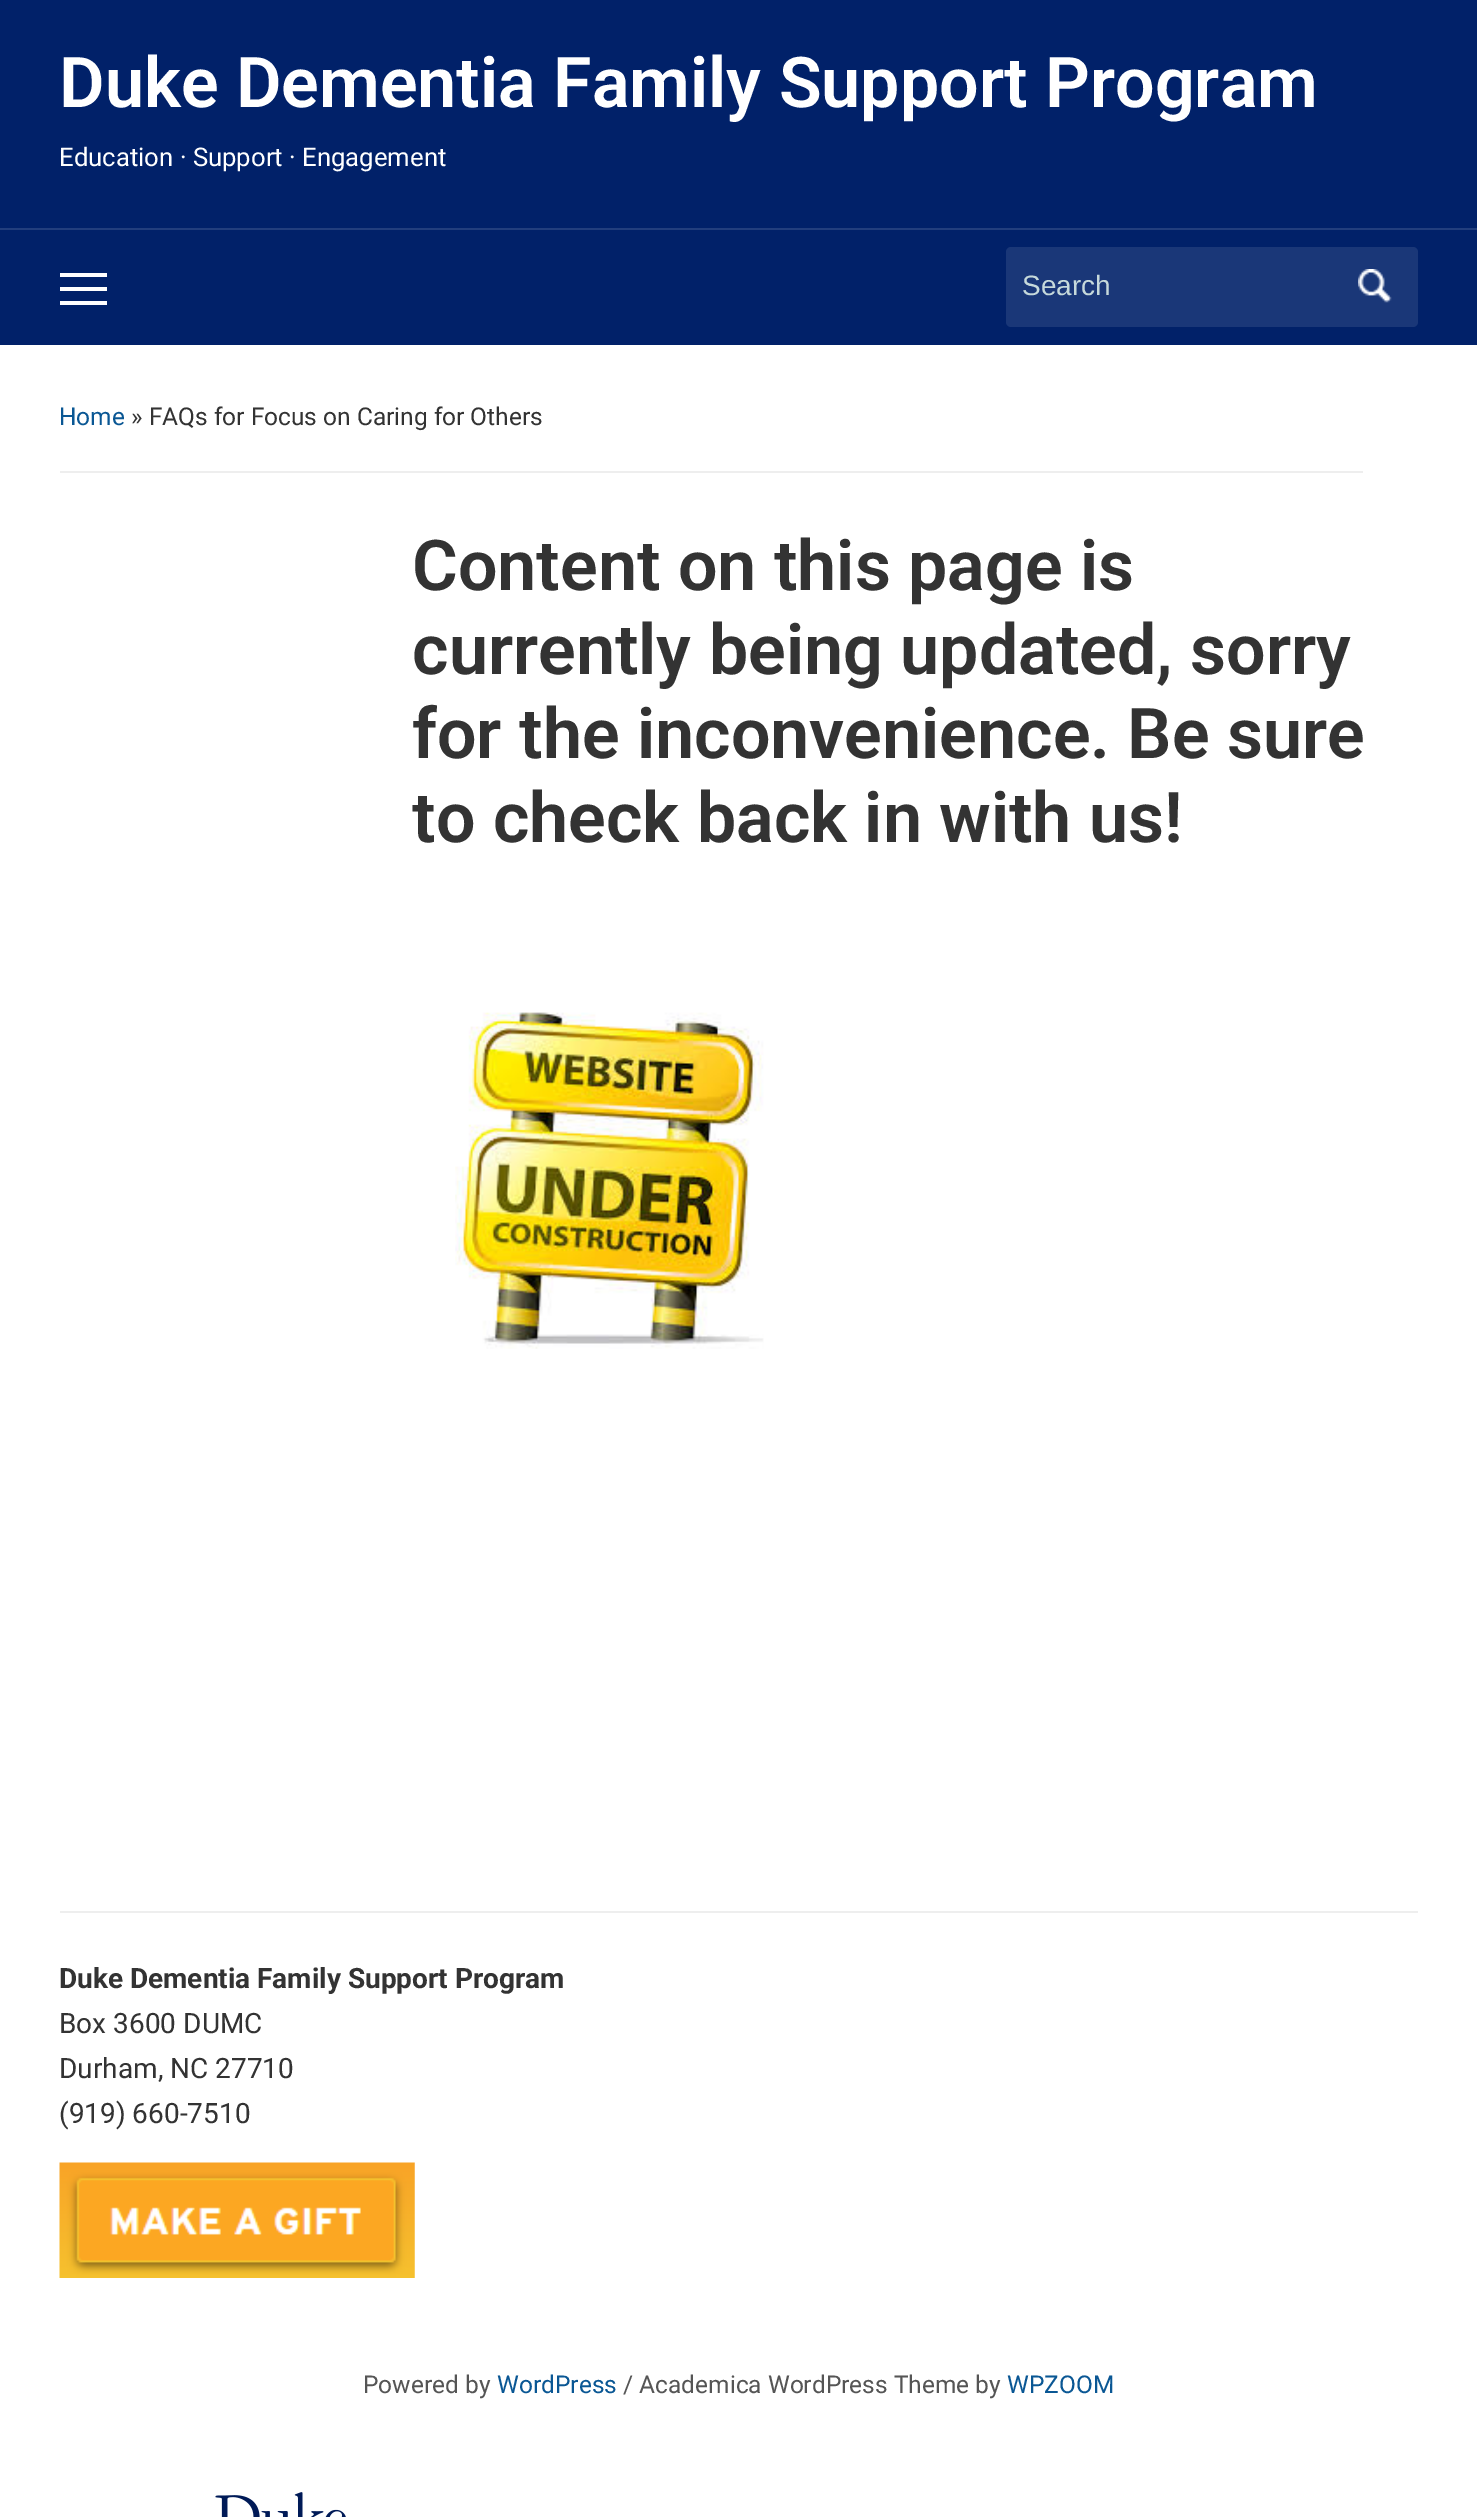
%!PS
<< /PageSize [1477 2517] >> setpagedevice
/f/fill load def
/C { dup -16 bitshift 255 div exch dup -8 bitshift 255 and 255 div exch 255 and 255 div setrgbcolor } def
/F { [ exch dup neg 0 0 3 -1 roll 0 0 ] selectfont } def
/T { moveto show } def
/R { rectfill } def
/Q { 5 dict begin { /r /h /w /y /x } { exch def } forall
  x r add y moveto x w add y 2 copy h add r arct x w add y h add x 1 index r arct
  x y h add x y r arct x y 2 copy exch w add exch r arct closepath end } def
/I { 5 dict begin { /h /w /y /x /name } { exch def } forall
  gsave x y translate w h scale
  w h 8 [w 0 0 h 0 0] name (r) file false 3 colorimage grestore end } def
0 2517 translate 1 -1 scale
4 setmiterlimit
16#FFFFFF C
0 0 1477 2517 R
16#012169 C
0 0 1477 345 R
/Roboto-SemiBold 70 F
16#FFFFFF C
(Duke Dementia Family Support Program) 59 107 T
/Roboto-Regular 25.7 F
(Education · Support · Engagement) 59 166 T
16#223E7D C
0 228 1477 2 R
16#FFFFFF C
60 273 47 4 R
60 287 47 4 R
60 301 47 4 R
16#1A3778 C
1006 247 412 80 5 Q f
/LiberationSans-Regular 28 F
16#C6D9DB C
(Search) 1022 295 T
(1.rgb) 1358 269 34 34 I
16#EEEEEE C
60 471 1303 2 R
/Roboto-Regular 24.5 F
16#0A5794 C
(Home) 59 425 T
16#333333 C
(» FAQs for Focus on Caring for Others) 131 425 T
/Roboto-SemiBold 70 F
(Content on this page is) 412 590 T
(currently being updated, sorry) 412 674 T
(for the inconvenience. Be sure) 412 758 T
(to check back in with us!) 412 842 T
(2.rgb) 455 1012 309 337 I
16#EEEEEE C
60 1911 1358 2 R
/Roboto-Bold 28 F
16#333333 C
(Duke Dementia Family Support Program) 59 1988 T
/Roboto-Regular 28 F
(Box 3600 DUMC) 59 2033 T
(Durham, NC 27710) 59 2078 T
(\(919\) 660-7510) 59 2123 T
(3.rgb) 59 2162 356 116 I
/Roboto-Regular 24.5 F
16#555555 C
(Powered by) 363 2393 T
16#0A5794 C
(WordPress) 497 2393 T
16#555555 C
(/ Academica WordPress Theme by) 623 2393 T
16#0A5794 C
(WPZOOM) 1007 2393 T
(4.rgb) 215 2492 131 25 I
showpage
